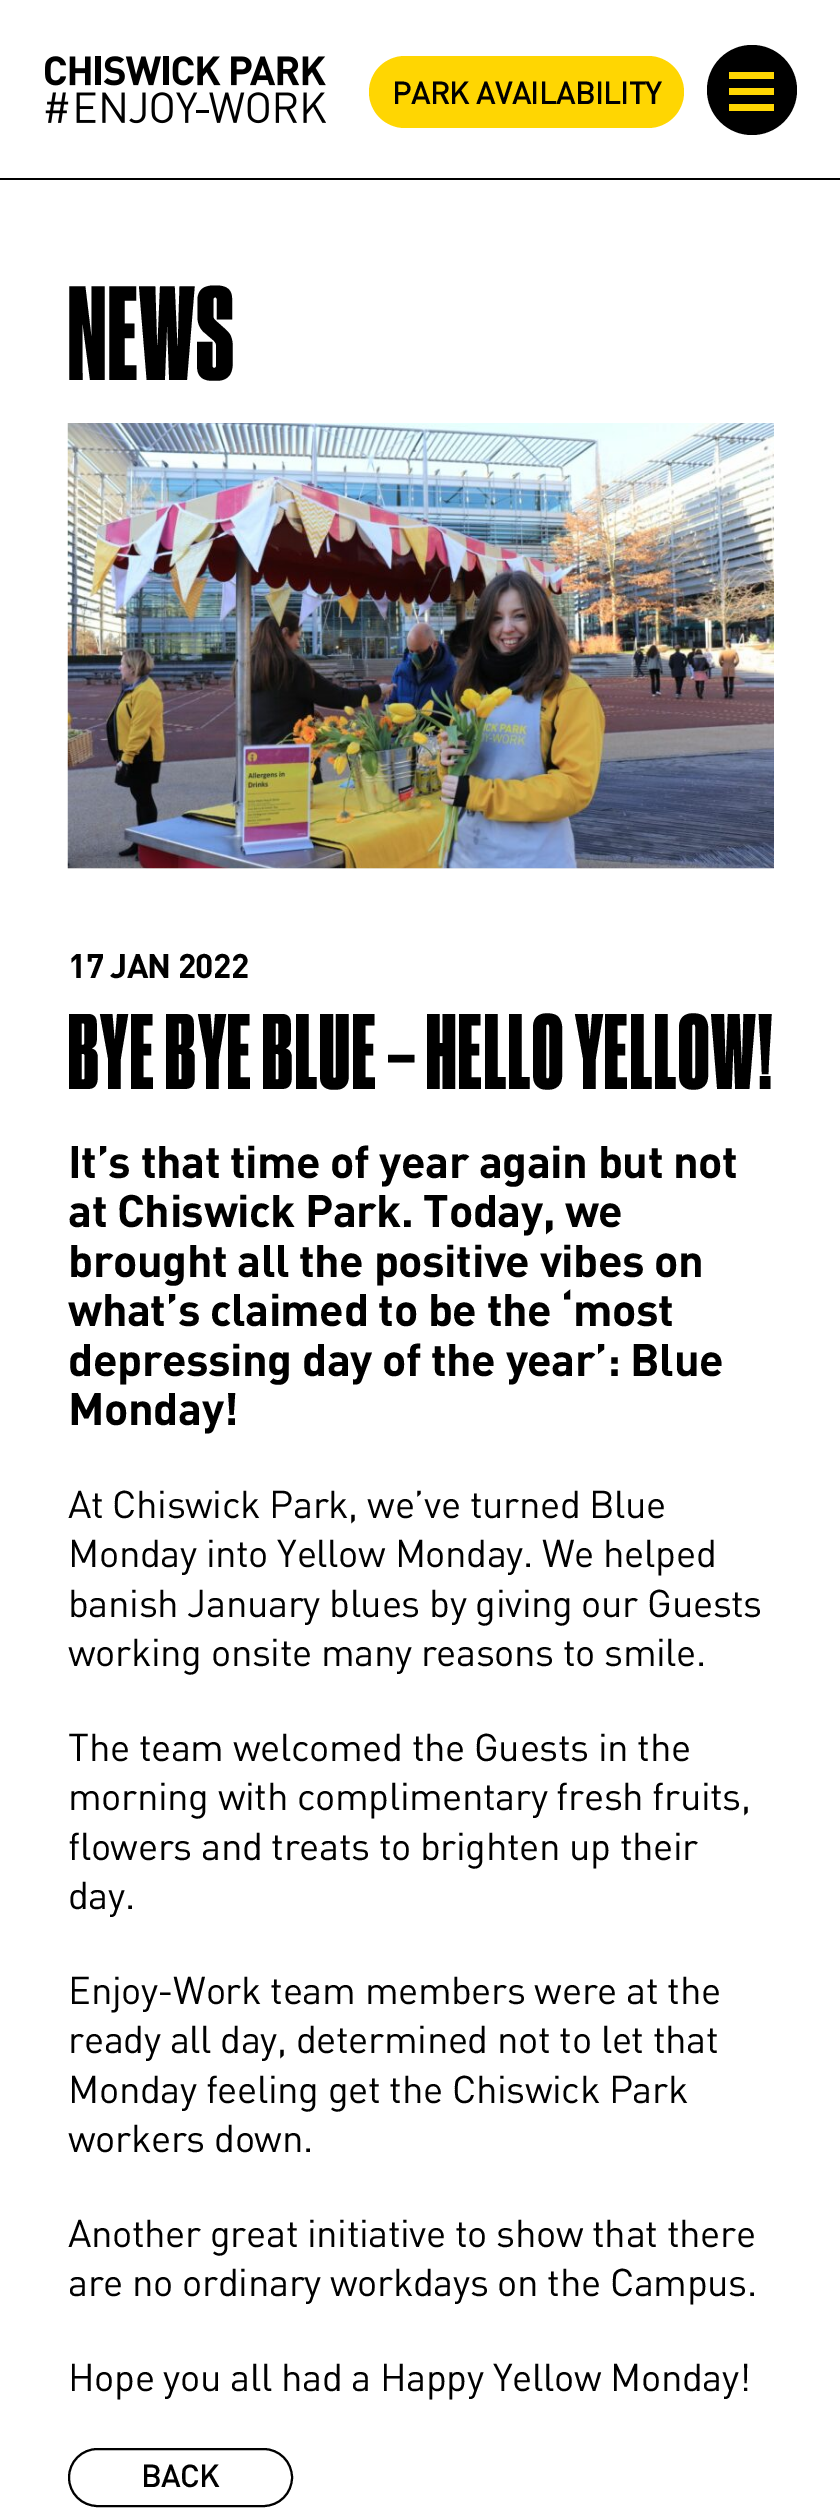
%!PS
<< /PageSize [840 2508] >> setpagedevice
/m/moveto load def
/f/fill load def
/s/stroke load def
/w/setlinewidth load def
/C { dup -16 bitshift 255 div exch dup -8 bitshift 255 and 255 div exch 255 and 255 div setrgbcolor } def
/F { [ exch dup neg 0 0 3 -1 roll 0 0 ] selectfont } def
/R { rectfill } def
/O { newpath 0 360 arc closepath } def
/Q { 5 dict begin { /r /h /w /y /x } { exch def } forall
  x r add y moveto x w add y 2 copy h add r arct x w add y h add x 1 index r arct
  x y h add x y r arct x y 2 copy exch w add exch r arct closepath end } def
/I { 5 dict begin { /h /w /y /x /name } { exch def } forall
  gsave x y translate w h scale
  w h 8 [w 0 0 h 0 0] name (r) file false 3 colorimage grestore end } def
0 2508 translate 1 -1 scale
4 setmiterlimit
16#FFFFFF C
0 0 840 2508 R
16#000000 C
752 90 45 O f
16#FFD602 C
729 72 45 7 R
729 88 45 7 R
729 104 45 7 R
16#000000 C
0 178 840 2 R
(1.rgb) 45 56 281 68 I
16#FFD602 C
369 56 315 72 36 Q f
/DIN-Medium 31.5 F
16#000000 C
392 104 m -.9 0 (PARK AVAILABILITY) ashow
/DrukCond-Black 126 F
68 380 m 1.7 0 (NEWS) ashow
16#F2F2F2 C
68 868 706 1 R
(2.rgb) 67 423 707 446 I
/DIN-Bold 33.75 F
16#000000 C
68 978 m -.75 0 (17 JAN 2022) ashow
/DrukCond-Black 101 F
68 1089 m 1.7 0 (BYE BYE BLUE – HELLO YELLOW!) ashow
/DIN-Bold 45 F
68 1178 m -.45 0 (It’s that time of year again but not) ashow
68 1227 m -.45 0 (at Chiswick Park. Today, we) ashow
68 1277 m -.45 0 (brought all the positive vibes on) ashow
68 1326 m -.45 0 (what’s claimed to be the ‘most) ashow
68 1376 m -.45 0 (depressing day of the year’: Blue) ashow
68 1425 m -.45 0 (Monday!) ashow
/DIN-Regular 38.25 F
68 1518 m -.4 0 (At Chiswick Park, we’ve turned Blue) ashow
68 1567 m -.4 0 (Monday into Yellow Monday. We helped) ashow
68 1617 m -.4 0 (banish January blues by giving our Guests) ashow
68 1666 m -.4 0 (working onsite many reasons to smile.) ashow
68 1761 m -.4 0 (The team welcomed the Guests in the) ashow
68 1810 m -.4 0 (morning with complimentary fresh fruits,) ashow
68 1860 m -.4 0 (flowers and treats to brighten up their) ashow
68 1909 m -.4 0 (day.) ashow
68 2004 m -.4 0 (Enjoy-Work team members were at the) ashow
68 2053 m -.4 0 (ready all day, determined not to let that) ashow
68 2103 m -.4 0 (Monday feeling get the Chiswick Park) ashow
68 2152 m -.4 0 (workers down.) ashow
68 2247 m -.4 0 (Another great initiative to show that there) ashow
68 2296 m -.4 0 (are no ordinary workdays on the Campus.) ashow
68 2391 m -.4 0 (Hope you all had a Happy Yellow Monday!) ashow
2 w
69 2449 223 57 28.5 Q s
/DIN-Medium 31.5 F
141 2487 m -.9 0 (BACK) ashow
showpage
